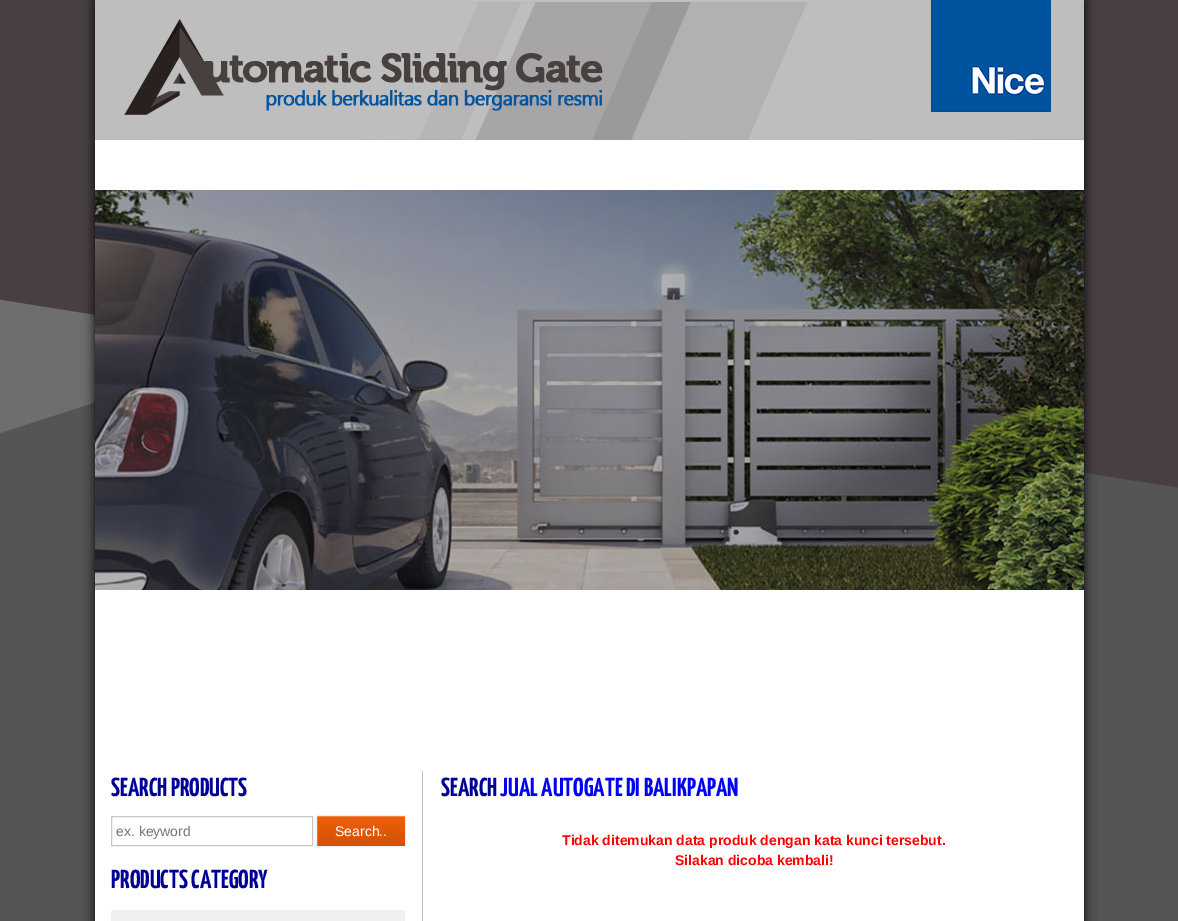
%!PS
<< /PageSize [1178 921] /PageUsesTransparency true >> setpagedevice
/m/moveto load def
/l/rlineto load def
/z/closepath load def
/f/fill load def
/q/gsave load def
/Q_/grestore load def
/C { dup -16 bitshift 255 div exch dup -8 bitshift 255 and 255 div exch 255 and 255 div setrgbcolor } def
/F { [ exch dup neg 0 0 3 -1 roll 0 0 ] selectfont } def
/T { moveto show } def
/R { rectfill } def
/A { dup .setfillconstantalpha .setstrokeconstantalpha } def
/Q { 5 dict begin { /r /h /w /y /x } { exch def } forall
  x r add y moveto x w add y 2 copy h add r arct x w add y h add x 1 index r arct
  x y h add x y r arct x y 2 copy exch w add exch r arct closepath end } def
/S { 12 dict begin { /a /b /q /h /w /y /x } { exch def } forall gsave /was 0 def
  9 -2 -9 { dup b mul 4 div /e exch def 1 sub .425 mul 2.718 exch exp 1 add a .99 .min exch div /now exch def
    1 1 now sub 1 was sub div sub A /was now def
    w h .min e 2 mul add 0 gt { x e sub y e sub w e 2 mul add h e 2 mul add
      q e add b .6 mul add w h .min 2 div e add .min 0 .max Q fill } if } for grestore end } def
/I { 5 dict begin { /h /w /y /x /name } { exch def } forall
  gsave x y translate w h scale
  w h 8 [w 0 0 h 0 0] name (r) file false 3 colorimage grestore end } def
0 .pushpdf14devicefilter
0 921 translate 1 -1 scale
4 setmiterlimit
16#555555 C
0 0 1178 921 R
(1.rgb) 0 0 1178 488 I
16#000000 C
95 0 989 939 0 6 1 S
16#FFFFFF C
95 140 989 781 R
(2.rgb) 95 0 989 140 I
(3.rgb) 95 190 989 400 I
16#C0C0C0 C
422 771 1 150 R
/YanoneKaffeesatz-Bold 26 F
16#000099 C
(SEARCH PRODUCTS) 111 796 T
16#C8C8C8 C
111.5 816.5 201 29 rectstroke
/LiberationSans-Regular 14 F
16#757575 C
(ex. keyword) 116 836 T
q 317 816 m 88 0 l 0 30 l -88 0 l z clip newpath
<< /ShadingType 2 /ColorSpace /DeviceRGB /Coords [361 816 361 846] /Extend [true true] /Function << /FunctionType 2 /Domain [0 1] /C0 [.945 .373 .031] /C1 [.816 .322 .027] /N 1 >> >> shfill Q_
16#F0F0F0 C
316.5 815.5 89 31 rectstroke
16#FFFFFF C
(Search..) 335 836 T
/YanoneKaffeesatz-Bold 26 F
16#000099 C
(PRODUCTS CATEGORY) 111 888 T
16#F0F0F0 C
111 910 294 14 3 Q f
16#000099 C
(SEARCH) 441 796 T
16#0000F9 C
(JUAL AUTOGATE DI BALIKPAPAN) 500 796 T
/LiberationSans-Bold 14 F
16#FF0000 C
(Tidak ditemukan data produk dengan kata kunci tersebut.) 562 845 T
(Silakan dicoba kembali!) 675 865 T
.poppdf14devicefilter showpage
